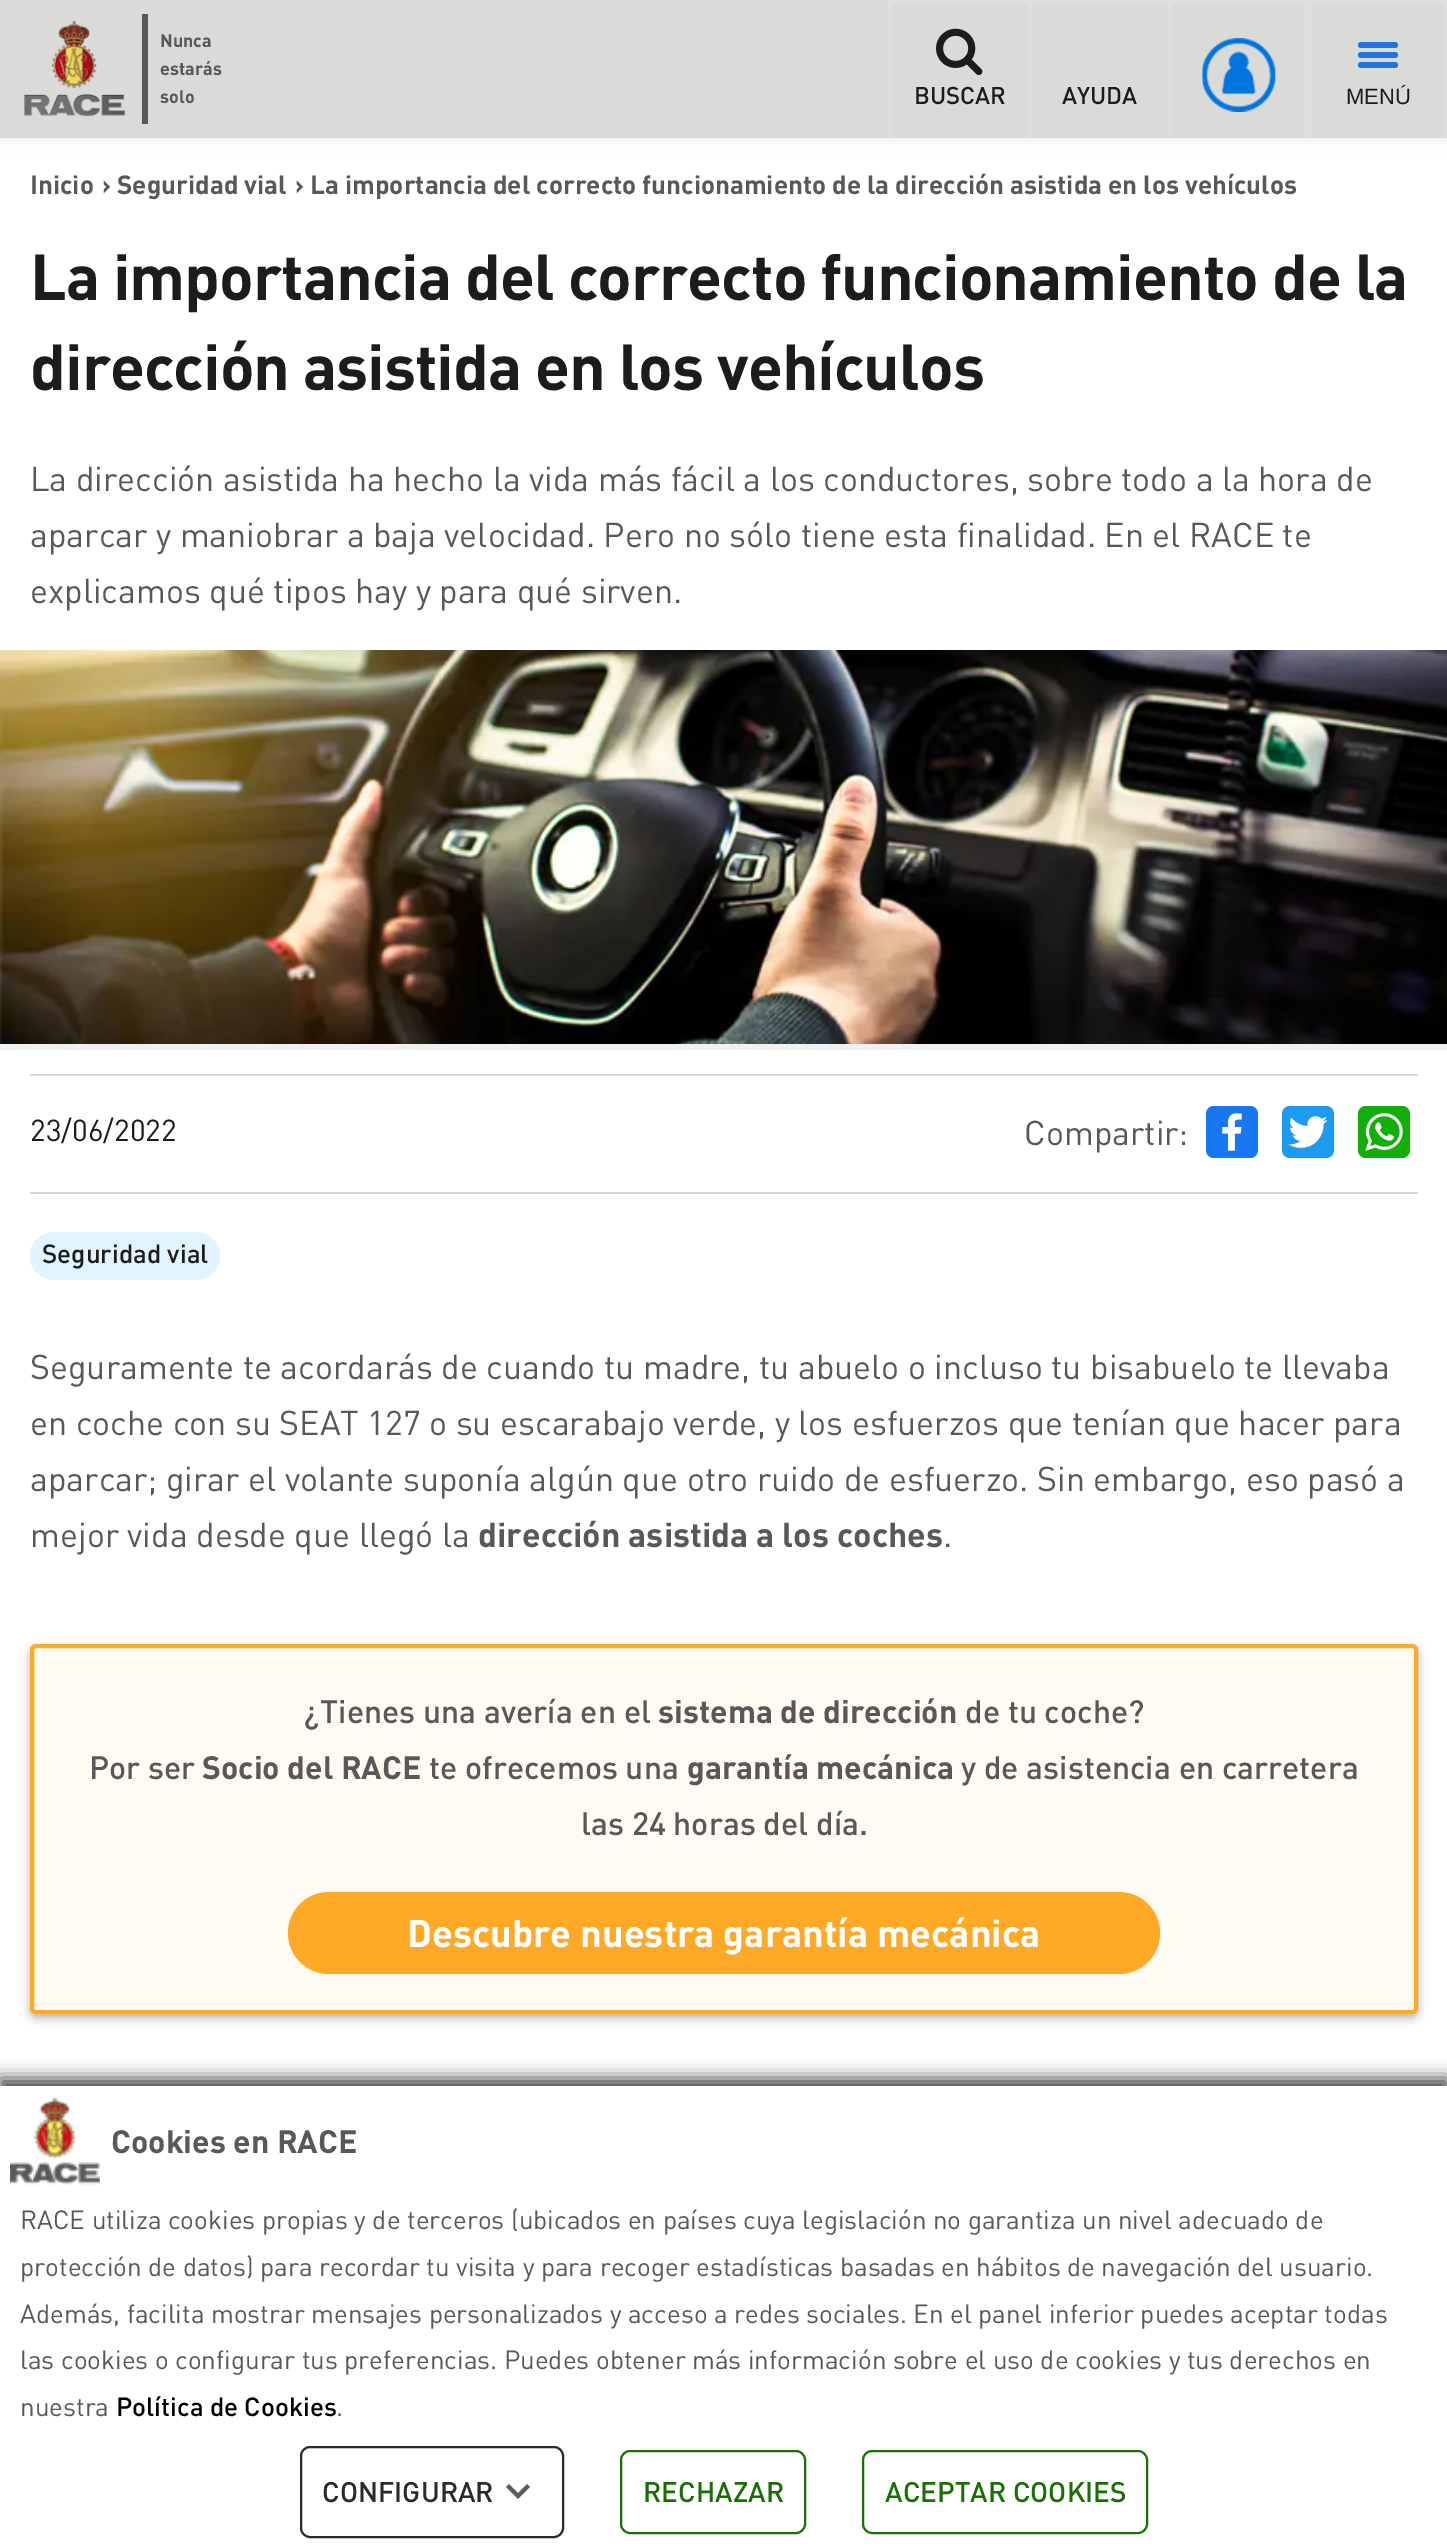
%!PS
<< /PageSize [1447 2548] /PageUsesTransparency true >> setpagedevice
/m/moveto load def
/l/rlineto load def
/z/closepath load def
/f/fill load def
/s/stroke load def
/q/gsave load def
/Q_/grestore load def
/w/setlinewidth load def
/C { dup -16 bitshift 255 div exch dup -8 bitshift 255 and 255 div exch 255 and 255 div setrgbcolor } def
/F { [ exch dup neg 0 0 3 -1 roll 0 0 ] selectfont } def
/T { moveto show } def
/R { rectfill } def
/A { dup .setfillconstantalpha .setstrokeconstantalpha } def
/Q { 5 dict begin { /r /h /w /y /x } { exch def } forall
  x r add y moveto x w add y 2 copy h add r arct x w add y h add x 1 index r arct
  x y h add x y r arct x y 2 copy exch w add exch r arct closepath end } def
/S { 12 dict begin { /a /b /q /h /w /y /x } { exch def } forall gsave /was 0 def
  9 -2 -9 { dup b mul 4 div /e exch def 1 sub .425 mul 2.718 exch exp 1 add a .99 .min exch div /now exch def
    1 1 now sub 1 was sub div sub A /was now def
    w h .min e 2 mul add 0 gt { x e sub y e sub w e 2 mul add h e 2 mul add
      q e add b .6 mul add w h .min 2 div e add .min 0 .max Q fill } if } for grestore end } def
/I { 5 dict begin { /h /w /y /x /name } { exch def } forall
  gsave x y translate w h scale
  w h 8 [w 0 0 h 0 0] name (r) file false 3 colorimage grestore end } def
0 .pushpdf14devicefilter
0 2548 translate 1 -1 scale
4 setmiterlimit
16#FFFFFF C
0 0 1447 2548 R
16#444444 C
0 2 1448 138 0 6 .1 S
16#DADAD9 C
0 0 1447 138 R
(1.rgb) 24 20 102 97 I
16#585858 C
142 14 6 110 R
/DIN-Bold 18 F
(Nunca) 160 47 T
(estarás) 160 75 T
(solo) 160 103 T
16#DFDFDF C
888 0 m 140 0 l 0 4 l -136 0 l z f
0.5 A
16#E4E4E4 C
888 138 m 0 -138 l 4 4 l 0 134 l z f
1 A
(2.rgb) 936 28 47 48 I
/DIN-Medium 24 F
16#1C1C1B C
(BUSCAR) 914 104 T
16#DFDFDF C
1028 0 m 140 0 l 0 4 l -136 0 l z f
0.5 A
16#E4E4E4 C
1028 138 m 0 -138 l 4 4 l 0 134 l z f
1 A
16#1C1C1B C
(AYUDA) 1062 104 T
16#DFDFDF C
1168 0 m 140 0 l -4 4 l -132 0 l z f
0.5 A
16#E4E4E4 C
1308 0 m 0 136 l -4 0 l 0 -132 l z f
1168 136 m 0 -136 l 4 4 l 0 132 l z f
1 A
(3.rgb) 1202 38 74 74 I
16#DFDFDF C
1308 0 m 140 0 l -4 4 l -132 0 l z f
0.5 A
16#E4E4E4 C
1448 0 m 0 138 l -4 0 l 0 -134 l z f
1308 138 m 0 -138 l 4 4 l 0 134 l z f
1 A
16#1F77DC C
1358 42 40 6 3 Q f
1358 52 40 6 3 Q f
1358 62 40 6 3 Q f
/LiberationSans-Regular 22 F
16#1C1C1B C
(MENÚ) 1346 104 T
/DIN-Bold 26 F
16#585858 C
(Inicio) 30 194 T
(> Seguridad vial) 102 194 T
(> La importancia del correcto funcionamiento de la dirección asistida en los vehículos) 295 194 T
/DIN-Bold 64 F
16#1C1C1B C
30 300 m -1 0 (La importancia del correcto funcionamiento de la) ashow
30 390 m -1 0 (dirección asistida en los vehículos) ashow
/DIN-Regular 34 F
16#585858 C
(La dirección asistida ha hecho la vida más fácil a los conductores, sobre todo a la hora de) 30 491 T
(aparcar y maniobrar a baja velocidad. Pero no sólo tiene esta finalidad. En el RACE te) 30 547 T
(explicamos qué tipos hay y para qué sirven.) 30 603 T
16#F1F1F1 C
0 1044 1447 6 R
(4.rgb) 0 650 1447 394 I
16#D8D8D8 C
30 1074 1388 2 R
30 1192 1388 2 R
/DIN-Regular 30 F
16#1C1C1B C
(23/06/2022) 30 1141 T
/DIN-Regular 34 F
16#585858 C
(Compartir:) 1024 1145 T
16#1877F2 C
1206 1106 52 52 8 Q f
(5.rgb) 1222 1113 20 38 I
16#1D9BF0 C
1282 1106 52 52 8 Q f
(6.rgb) 1288 1116 40 32 I
16#12AF0A C
1358 1106 52 52 8 Q f
(7.rgb) 1365 1113 38 38 I
16#E0F3FF C
30 1232 190 48 24 Q f
/DIN-Medium 26 F
16#1C1C1B C
(Seguridad vial) 42 1263 T
/DIN-Regular 34 F
16#585858 C
(Seguramente te acordarás de cuando tu madre, tu abuelo o incluso tu bisabuelo te llevaba) 30 1379 T
(en coche con su SEAT 127 o su escarabajo verde, y los esfuerzos que tenían que hacer para) 30 1435 T
(aparcar; girar el volante suponía algún que otro ruido de esfuerzo. Sin embargo, eso pasó a) 30 1491 T
(mejor vida desde que llegó la) 30 1547 T
/DIN-Bold 34 F
(dirección asistida a los coches) 478 1547 T
/DIN-Regular 34 F
(.) 943 1547 T
16#000000 C
30 1648 1388 370 6 5 .3 S
16#FFFAF2 C
32 1646 1384 366 4 Q q f Q_
16#FFAA27 C
4 w
s
/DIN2-Medium 32 F
16#585858 C
(¿Tienes una avería en el) 304 1723 T
/DIN-Bold 32 F
(sistema de dirección) 658 1723 T
/DIN2-Medium 32 F
(de tu coche?) 965 1723 T
(Por ser) 89 1779 T
/DIN-Bold 32 F
(Socio del RACE) 202 1779 T
/DIN2-Medium 32 F
(te ofrecemos una) 429 1779 T
/DIN-Bold 32 F
(garantía mecánica) 687 1779 T
/DIN2-Medium 32 F
(y de asistencia en carretera) 961 1779 T
(las 24 horas del día.) 581 1835 T
16#FFAA27 C
288 1892 872 82 41 Q f
/DIN-Bold 38 F
16#FFFFFF C
(Descubre nuestra garantía mecánica) 407 1947 T
16#000000 C
0 2078 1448 462 0 8 .7 S
16#FFFFFF C
0 2086 1447 462 R
(8.rgb) 10 2097 90 88 I
/DIN-Bold 32 F
16#585858 C
(Cookies en RACE) 111 2153 T
/DIN-Regular 26 F
(RACE utiliza cookies propias y de terceros \(ubicados en países cuya legislación no garantiza un nivel adecuado de) 20 2229 T
(protección de datos\) para recordar tu visita y para recoger estadísticas basadas en hábitos de navegación del usuario.) 20 2276 T
(Además, facilita mostrar mensajes personalizados y acceso a redes sociales. En el panel inferior puedes aceptar todas) 20 2323 T
(las cookies o configurar tus preferencias. Puedes obtener más información sobre el uso de cookies y tus derechos en) 20 2369 T
(nuestra) 20 2416 T
/DIN2-Medium 26 F
16#000000 C
(Política de Cookies) 116 2416 T
/DIN-Regular 26 F
16#585858 C
(.) 336 2416 T
16#2A2A2A C
2 w
301 2447 262 90 9 Q s
/DIN2-Medium 28 F
(CONFIGURAR) 322 2502 T
16#5C5C5C C
518 2499 m -12 -12 l 3 -3 l 9 9 l 9 -9 l 3 3 l z f
16#187004 C
621 2451 184 82 9 Q s
(RECHAZAR) 643 2502 T
863 2451 284 82 9 Q s
(ACEPTAR COOKIES) 885 2502 T
.poppdf14devicefilter showpage
